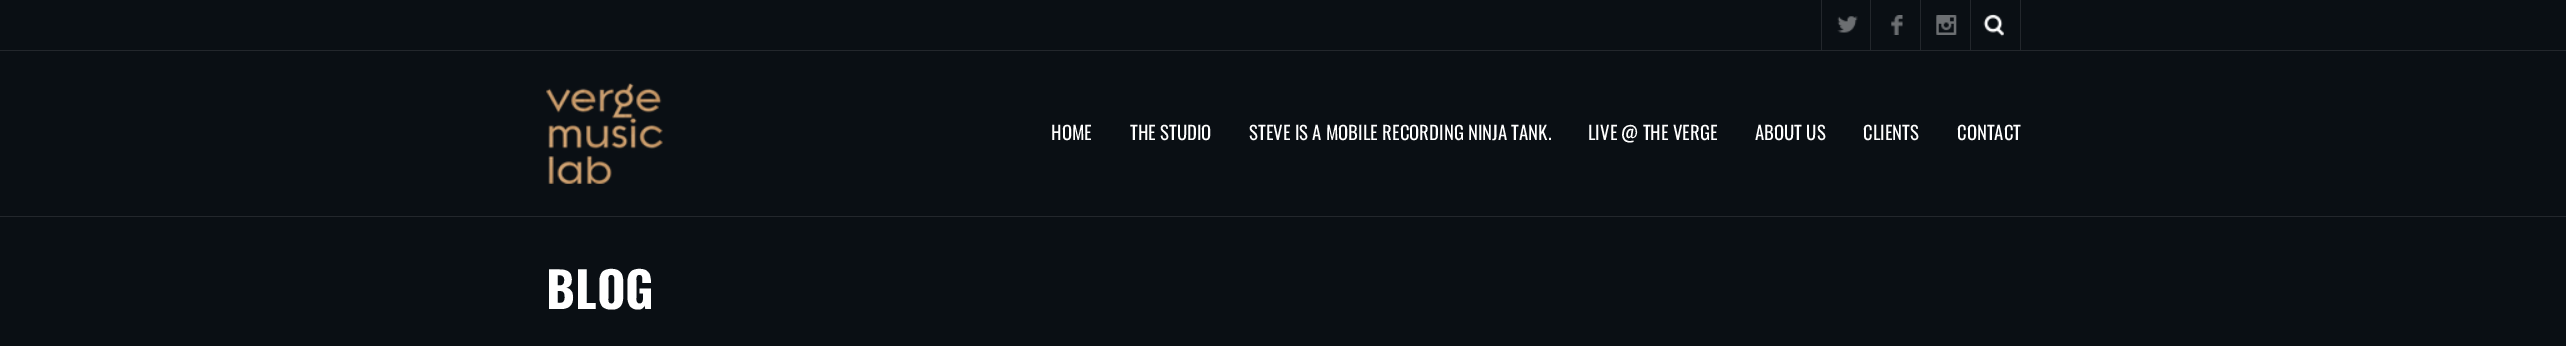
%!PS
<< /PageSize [2566 346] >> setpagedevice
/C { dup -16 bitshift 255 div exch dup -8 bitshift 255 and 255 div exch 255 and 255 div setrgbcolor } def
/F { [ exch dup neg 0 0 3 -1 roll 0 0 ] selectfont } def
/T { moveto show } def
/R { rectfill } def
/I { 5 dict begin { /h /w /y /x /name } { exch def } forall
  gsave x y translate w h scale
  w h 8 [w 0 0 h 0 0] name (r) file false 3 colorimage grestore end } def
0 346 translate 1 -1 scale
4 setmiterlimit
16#0A0F14 C
0 0 2566 346 R
16#23272C C
0 50 2566 1 R
1870 0 1 50 R
1821 0 1 50 R
(1.rgb) 1837 16 21 17 I
1920 0 1 50 R
(2.rgb) 1891 15 12 20 I
1970 0 1 50 R
(3.rgb) 1936 15 21 20 I
(4.rgb) 1983 14 21 23 I
2020 0 1 50 R
0 216 2566 1 R
(5.rgb) 546 83 117 101 I
/Oswald-Regular 18.75 F
16#FFFFFF C
(HOME) 1051 140 T
(THE STUDIO) 1130 140 T
(STEVE IS A MOBILE RECORDING NINJA TANK.) 1249 140 T
(LIVE @ THE VERGE) 1588 140 T
(ABOUT US) 1755 140 T
(CLIENTS) 1863 140 T
(CONTACT) 1957 140 T
/Oswald-Bold 49 F
(BLOG) 546 309 T
showpage
